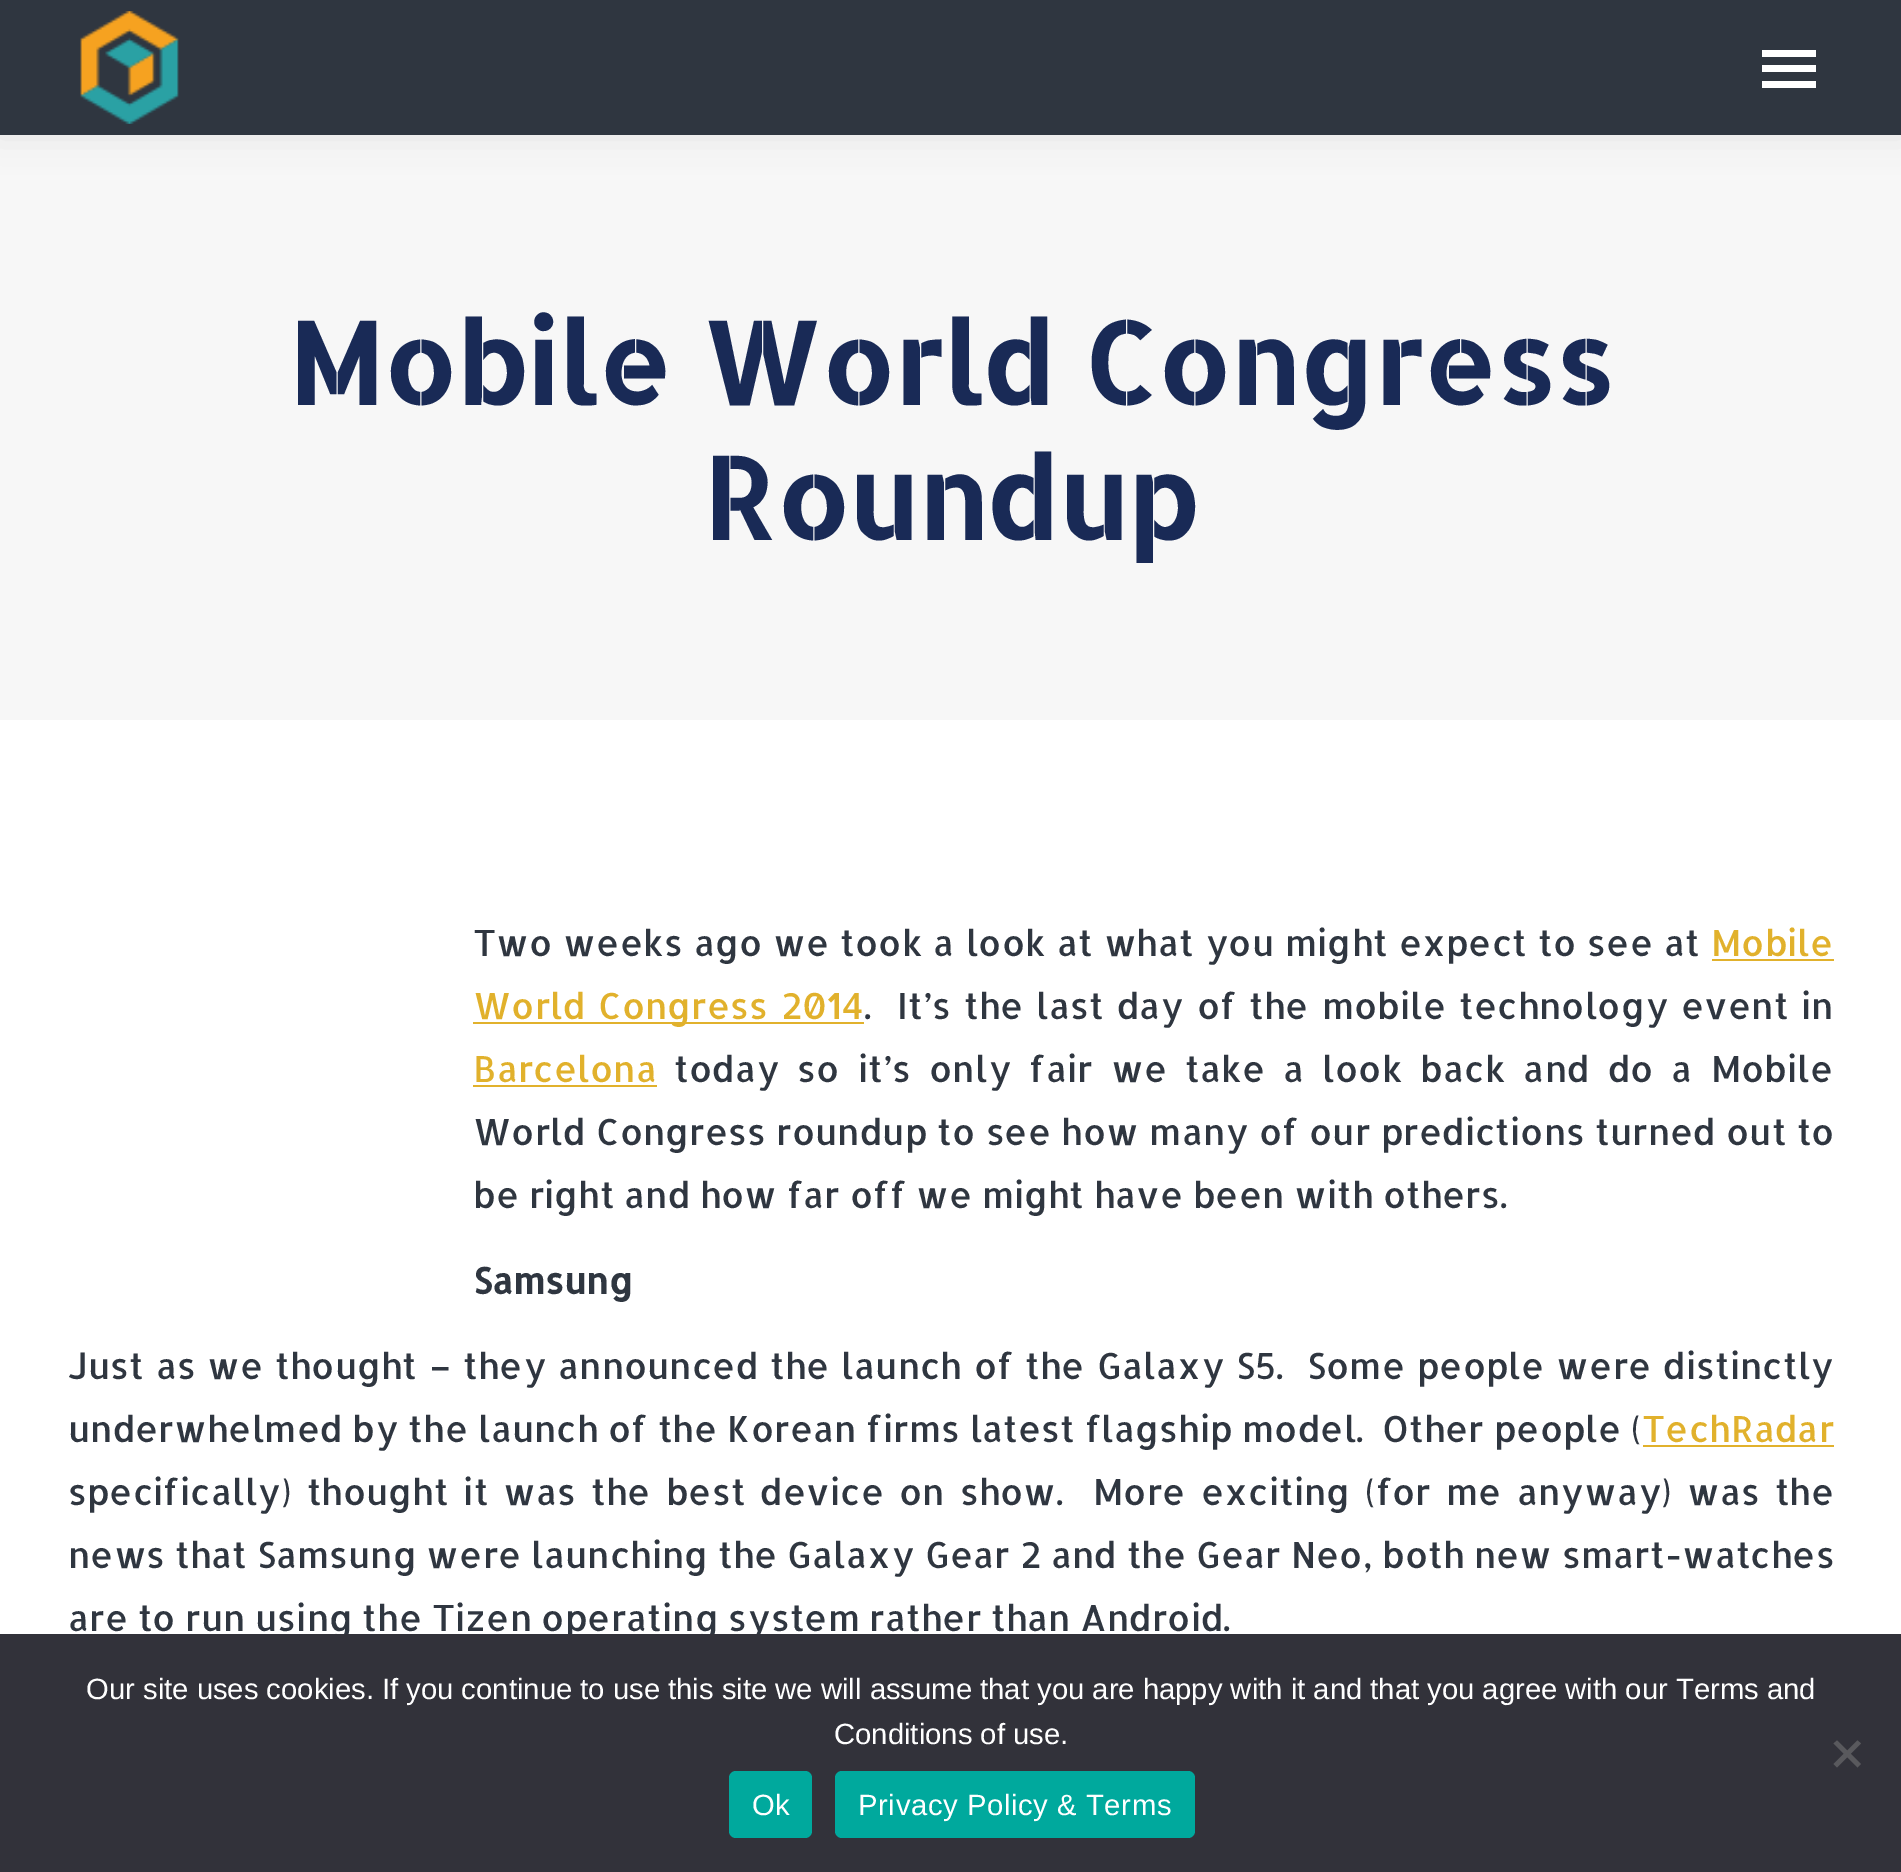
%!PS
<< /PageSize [1901 1872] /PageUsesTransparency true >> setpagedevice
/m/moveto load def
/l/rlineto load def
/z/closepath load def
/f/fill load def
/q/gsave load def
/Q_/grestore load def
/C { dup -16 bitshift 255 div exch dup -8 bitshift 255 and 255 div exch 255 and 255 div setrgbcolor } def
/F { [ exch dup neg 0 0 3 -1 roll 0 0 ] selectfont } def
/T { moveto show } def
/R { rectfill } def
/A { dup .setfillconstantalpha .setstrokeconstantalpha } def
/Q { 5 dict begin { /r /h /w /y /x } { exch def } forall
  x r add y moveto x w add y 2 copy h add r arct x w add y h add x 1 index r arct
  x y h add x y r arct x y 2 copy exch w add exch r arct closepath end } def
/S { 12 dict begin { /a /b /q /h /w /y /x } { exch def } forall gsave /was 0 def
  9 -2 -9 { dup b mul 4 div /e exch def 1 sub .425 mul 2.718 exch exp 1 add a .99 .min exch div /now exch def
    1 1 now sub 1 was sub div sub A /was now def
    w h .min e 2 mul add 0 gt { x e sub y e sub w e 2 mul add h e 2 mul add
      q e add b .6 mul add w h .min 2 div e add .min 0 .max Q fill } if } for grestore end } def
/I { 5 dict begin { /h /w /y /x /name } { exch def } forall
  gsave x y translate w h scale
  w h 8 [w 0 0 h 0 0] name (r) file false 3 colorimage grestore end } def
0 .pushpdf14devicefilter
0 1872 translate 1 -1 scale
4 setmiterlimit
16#FFFFFF C
0 0 1901 1872 R
16#F7F7F7 C
0 135 1901 585 R
16#000000 C
-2 -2 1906 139 0 17 .07 S
16#2F3640 C
0 0 1901 135 R
(1.rgb) 80 11 99 113 I
16#FFFFFF C
1762 50 54 7 R
1762 65 54 7 R
1762 81 54 7 R
/AllertaStencil-Bold 112.5 F
16#192A56 C
(Mobile World Congress) 288 405 T
q
68 293 1766 270 rectclip
(Roundup) 703 540 T
Q_
/Allerta-Regular 36 F
16#2F3640 C
473 956 m 1.5 0 32 (Two weeks ago we took a look at what you might expect to see at) widthshow
16#E1B12C C
(Mobile) 1711 956 T
1712 959 122 2 R
473 1022 391 2 R
473 1019 m 3 0 32 (World Congress 2014) widthshow
16#2F3640 C
(.) 864 1019 T
897 1019 m 3.25 0 32 (It’s the last day of the mobile technology event in) widthshow
16#E1B12C C
(Barcelona) 473 1082 T
473 1085 184 2 R
16#2F3640 C
674 1082 m 8.5 0 32 (today so it’s only fair we take a look back and do a Mobile) widthshow
473 1145 m .7 0 32 (World Congress roundup to see how many of our predictions turned out to) widthshow
(be right and how far off we might have been with others.) 473 1208 T
/Allerta-Bold 36 F
(Samsung) 473 1294 T
/Allerta-Regular 36 F
68 1379 m 2.25 0 32 (Just as we thought – they announced the launch of the Galaxy S5.) widthshow
1307 1379 m 2.25 0 32 (Some people were distinctly) widthshow
68 1442 m .25 0 32 (underwhelmed by the launch of the Korean firms latest flagship model.) widthshow
(Other people \() 1382 1442 T
16#E1B12C C
(TechRadar) 1642 1442 T
1643 1445 191 2 R
16#2F3640 C
68 1505 m 5.5 0 32 (specifically\) thought it was the best device on show.) widthshow
1093 1505 m 5.5 0 32 (More exciting \(for me anyway\) was the) widthshow
68 1568 m .2 0 32 (news that Samsung were launching the Galaxy Gear 2 and the Gear Neo, both new smart-watches) widthshow
(are to run using the Tizen operating system rather than Android.) 68 1631 T
16#32323A C
0 1634 1901 238 R
/LiberationSans-Regular 29.25 F
16#FFFFFF C
(Our site uses cookies. If you continue to use this site we will assume that you are happy with it and that you agree with our Terms and) 86 1699 T
(Conditions of use.) 834 1744 T
16#59595D C
1857.5 1740.5 m 3.5 3 l -24 24 l -3.5 -3.5 l z f
1833.5 1743.5 m 3.5 -3 l 24 23.5 l -3.5 3.5 l z f
16#00A99D C
729 1771 83 67 7 Q f
16#FFFFFF C
752 1815 m .6 0 (Ok) ashow
16#00A99D C
835 1771 360 67 7 Q f
16#FFFFFF C
858 1815 m .6 0 (Privacy Policy & Terms) ashow
.poppdf14devicefilter showpage
